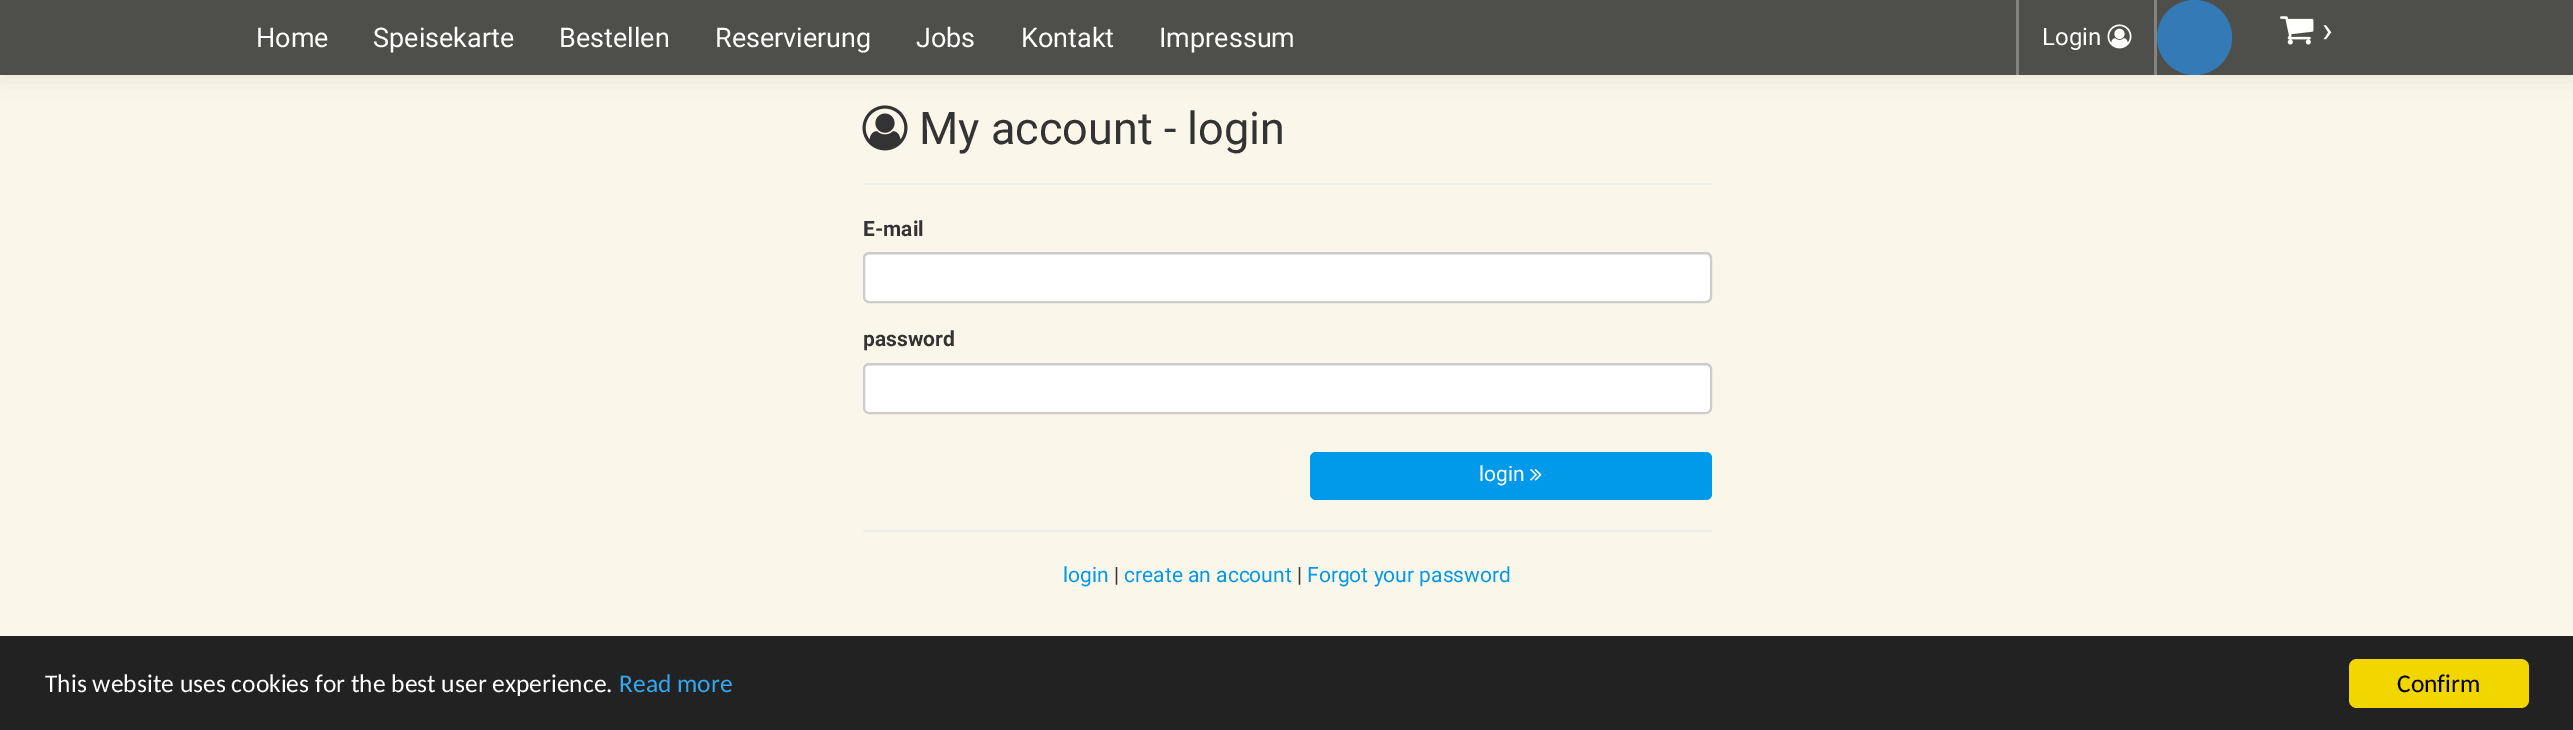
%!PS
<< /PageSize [2573 730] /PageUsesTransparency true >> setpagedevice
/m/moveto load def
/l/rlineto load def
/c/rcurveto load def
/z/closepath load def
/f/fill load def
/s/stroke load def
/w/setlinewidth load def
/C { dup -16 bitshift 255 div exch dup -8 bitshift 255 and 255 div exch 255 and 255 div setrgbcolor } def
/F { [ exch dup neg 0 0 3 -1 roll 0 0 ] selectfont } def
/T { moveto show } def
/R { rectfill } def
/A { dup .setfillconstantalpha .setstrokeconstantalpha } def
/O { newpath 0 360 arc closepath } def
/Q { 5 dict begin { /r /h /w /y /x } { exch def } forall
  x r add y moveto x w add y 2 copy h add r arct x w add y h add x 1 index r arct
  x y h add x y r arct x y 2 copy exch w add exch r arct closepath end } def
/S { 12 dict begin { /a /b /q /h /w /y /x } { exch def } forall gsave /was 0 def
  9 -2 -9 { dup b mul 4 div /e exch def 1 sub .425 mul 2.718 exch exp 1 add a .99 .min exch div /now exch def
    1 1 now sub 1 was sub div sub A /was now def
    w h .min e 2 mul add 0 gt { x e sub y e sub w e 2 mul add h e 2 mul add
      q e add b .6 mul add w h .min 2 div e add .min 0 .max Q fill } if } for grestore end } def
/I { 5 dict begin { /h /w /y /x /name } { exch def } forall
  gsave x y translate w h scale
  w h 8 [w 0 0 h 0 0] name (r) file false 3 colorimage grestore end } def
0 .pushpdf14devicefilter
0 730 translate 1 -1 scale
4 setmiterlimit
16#FAF7EA C
0 0 2573 730 R
(3.rgb) 862 105 46 46 I
16#000000 C
0 6 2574 75 0 12 .05 S
16#4E4E4A C
0 0 2573 75 R
/Roboto-Regular 27 F
16#FFFFFF C
(Home) 256 47 T
(Speisekarte) 373 47 T
(Bestellen) 559 47 T
(Reservierung) 715 47 T
(Jobs) 916 47 T
(Kontakt) 1021 47 T
(Impressum) 1159 47 T
16#838380 C
2016 0 3 75 R
/Roboto-Regular 24 F
16#FFFFFF C
(Login) 2042 45 T
(1.rgb) 2107 24 25 25 I
16#838380 C
2154 0 3 75 R
16#337AB7 C
2194.5 37.5 37.5 O f
(2.rgb) 2280 16 34 29 I
/Roboto-Regular 36 F
16#FFFFFF C
(›) 2322 42 T
/Roboto-Regular 45 F
16#333334 C
(My account - login) 919 144 T
16#EEEEEE C
863 183 849 2 R
/Roboto-Bold 21 F
16#333334 C
(E-mail) 863 236 T
16#FFFFFF C
863 252 849 51 6 Q f
16#ECECEC C
868 255 m 838 0 l 2 0 4 2 4 5 c 0 -1 l 0 -3 -2 -5 -5 -5 c -836 0 l -3 0 -5 2 -5 5 c 0 1 l 0 -3 2 -5 4 -5 c z f
16#CCCCCC C
2 w
864 253 847 49 5 Q s
16#333334 C
(password) 863 346 T
16#FFFFFF C
863 363 849 51 6 Q f
16#ECECEC C
868 366 m 838 0 l 2 0 4 2 4 4 c 0 -3 -2 -5 -5 -5 c -836 0 l -3 0 -5 2 -5 5 c 0 -2 2 -4 4 -4 c z f
16#CCCCCC C
864 364 847 49 5 Q s
16#0199EA C
1310 452 402 48 6 Q f
/Roboto-Regular 21 F
16#FFFFFF C
(login) 1479 481 T
(4.rgb) 1530 469 12 12 I
16#EEEEEE C
863 530 849 2 R
16#0199EA C
(login) 1063 582 T
16#333334 C
(|) 1114 582 T
16#0199EA C
(create an account) 1124 582 T
16#333334 C
(|) 1297 582 T
16#0199EA C
(Forgot your password) 1307 582 T
16#222222 C
0 636 2573 94 R
/Carlito-Regular 25.5 F
16#FFFFFF C
(This website uses cookies for the best user experience.) 45 692 T
16#31A8F0 C
(Read more) 619 692 T
16#F1D600 C
2349 659 180 49 8 Q f
16#000000 C
(Confirm) 2397 692 T
.poppdf14devicefilter showpage
